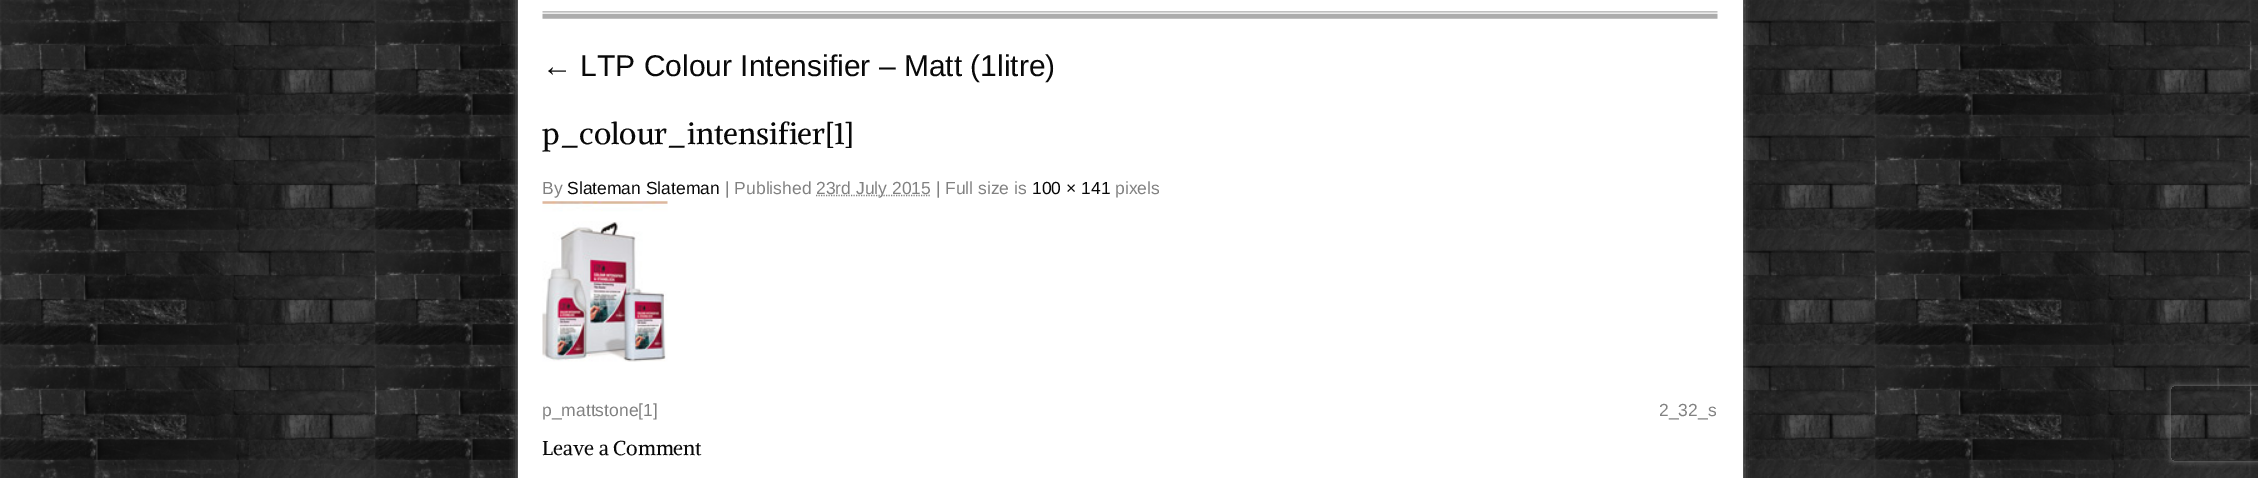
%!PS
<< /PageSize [2258 478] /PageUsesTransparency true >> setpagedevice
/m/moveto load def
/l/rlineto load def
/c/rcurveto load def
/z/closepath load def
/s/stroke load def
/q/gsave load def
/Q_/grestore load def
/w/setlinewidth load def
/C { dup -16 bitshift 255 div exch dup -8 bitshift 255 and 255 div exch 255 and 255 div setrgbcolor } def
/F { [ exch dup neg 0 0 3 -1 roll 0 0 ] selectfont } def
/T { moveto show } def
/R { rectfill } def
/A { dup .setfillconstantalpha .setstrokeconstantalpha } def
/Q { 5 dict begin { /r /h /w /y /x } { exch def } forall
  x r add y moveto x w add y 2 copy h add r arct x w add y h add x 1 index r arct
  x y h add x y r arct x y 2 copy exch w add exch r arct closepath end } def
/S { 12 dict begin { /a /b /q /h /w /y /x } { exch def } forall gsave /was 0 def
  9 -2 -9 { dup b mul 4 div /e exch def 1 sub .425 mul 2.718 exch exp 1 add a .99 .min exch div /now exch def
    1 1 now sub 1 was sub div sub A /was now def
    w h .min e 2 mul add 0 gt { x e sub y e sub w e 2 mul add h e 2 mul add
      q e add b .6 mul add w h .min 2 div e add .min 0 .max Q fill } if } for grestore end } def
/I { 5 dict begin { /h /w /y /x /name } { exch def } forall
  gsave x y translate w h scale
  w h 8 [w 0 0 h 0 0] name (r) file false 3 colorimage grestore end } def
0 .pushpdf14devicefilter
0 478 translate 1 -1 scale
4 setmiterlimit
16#FFFFFF C
0 0 2258 478 R
(1.rgb) 0 0 2258 478 I
16#818181 C
518 -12 1225 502 0 4 1 S
16#FFFFFF C
518 0 1225 478 R
(2.rgb) 542 11 1176 8 I
/LiberationSans-Regular 30 F
16#090909 C
(← LTP Colour Intensifier – Matt \(1litre\)) 542 76 T
/Alike-Regular 30 F
(p_colour_intensifier[1]) 542 144 T
/LiberationSans-Regular 17.5 F
16#818181 C
(By) 542 194 T
16#090909 C
(Slateman Slateman) 567 194 T
16#818181 C
(| Published) 725 194 T
1.2 w
[1.25 1.25] 0 setdash
816 195.5 m 114.5 0 l s
(23rd July 2015 | Full size is) 816 194 T
16#090909 C
(100 × 141) 1032 194 T
16#818181 C
(pixels) 1115 194 T
(3.rgb) 542 201 126 161 I
(p_mattstone[1]) 542 416 T
(2_32_s) 1659 416 T
/Alike-Regular 20 F
16#090909 C
(Leave a Comment) 542 455 T
q
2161 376 m 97 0 l 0 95 l -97 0 l z 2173.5 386 m 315 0 l 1.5 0 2.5 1 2.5 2.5 c 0 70 l 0 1.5 -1 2.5 -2.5 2.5 c -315 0 l -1.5 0 -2.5 -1 -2.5 -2.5 c 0 -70 l 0 -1.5 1 -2.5 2.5 -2.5 c z eoclip newpath
16#808080 C
2171 386 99 75 2.5 3 1 S
Q_
.poppdf14devicefilter showpage
